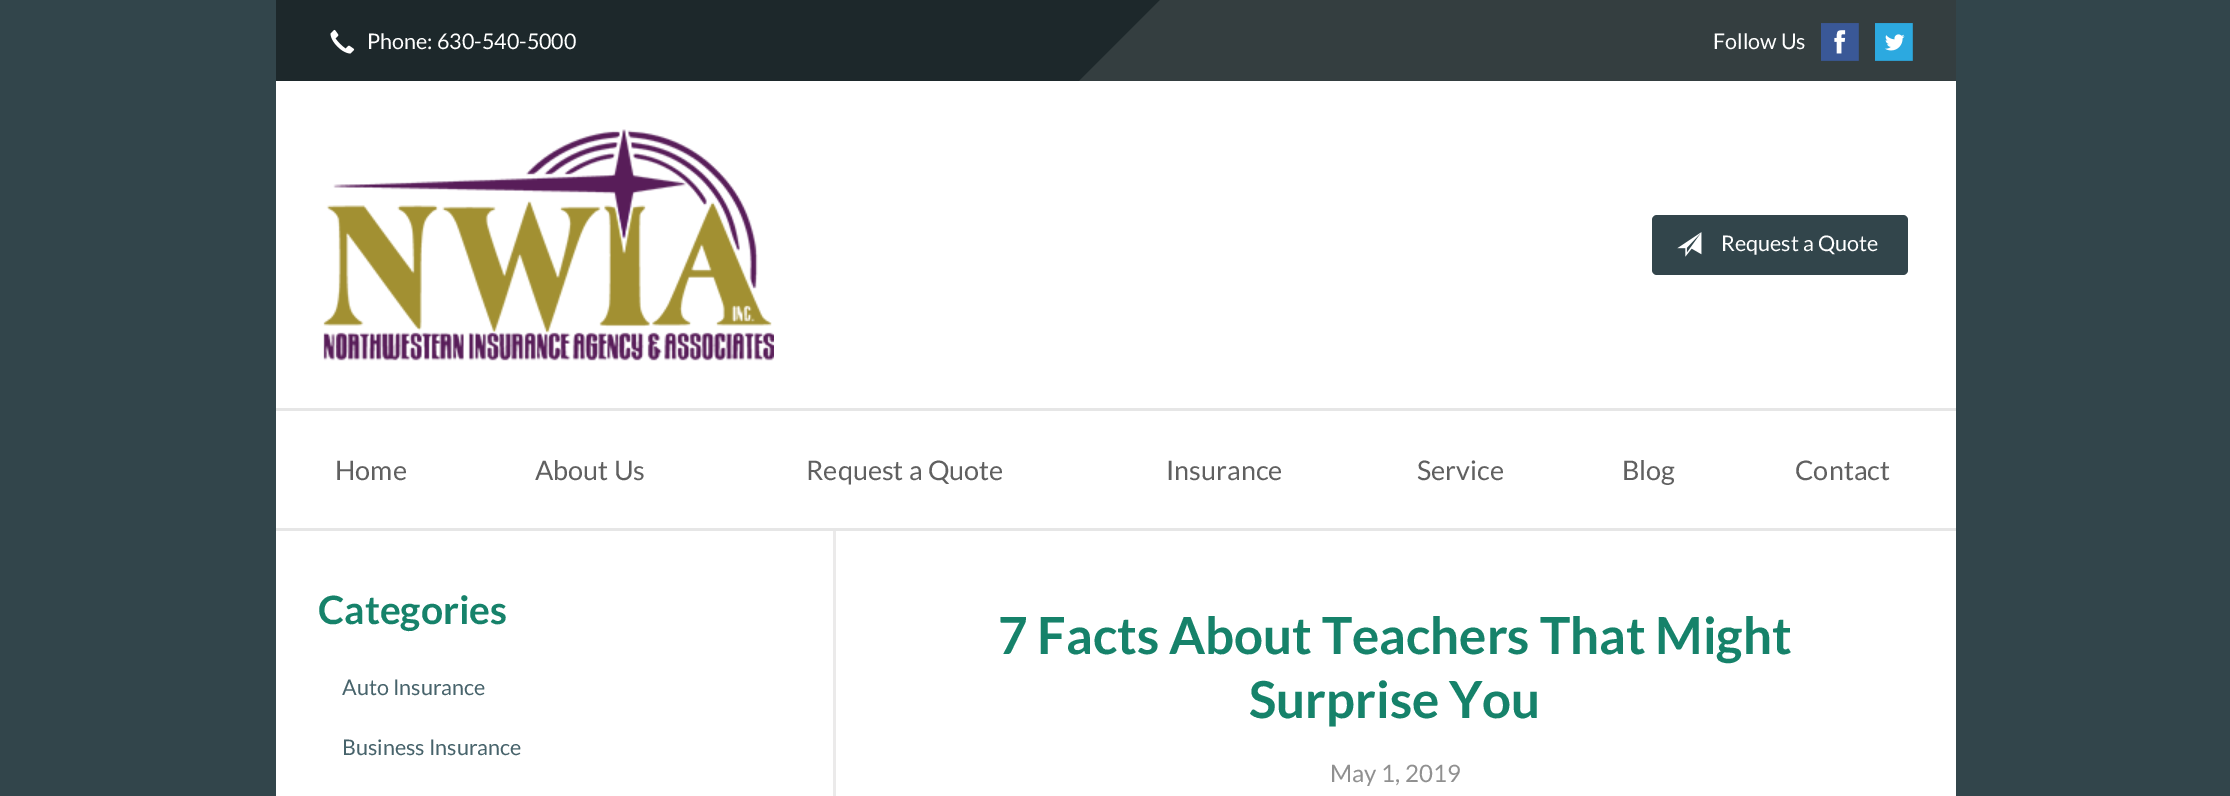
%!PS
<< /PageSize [2230 796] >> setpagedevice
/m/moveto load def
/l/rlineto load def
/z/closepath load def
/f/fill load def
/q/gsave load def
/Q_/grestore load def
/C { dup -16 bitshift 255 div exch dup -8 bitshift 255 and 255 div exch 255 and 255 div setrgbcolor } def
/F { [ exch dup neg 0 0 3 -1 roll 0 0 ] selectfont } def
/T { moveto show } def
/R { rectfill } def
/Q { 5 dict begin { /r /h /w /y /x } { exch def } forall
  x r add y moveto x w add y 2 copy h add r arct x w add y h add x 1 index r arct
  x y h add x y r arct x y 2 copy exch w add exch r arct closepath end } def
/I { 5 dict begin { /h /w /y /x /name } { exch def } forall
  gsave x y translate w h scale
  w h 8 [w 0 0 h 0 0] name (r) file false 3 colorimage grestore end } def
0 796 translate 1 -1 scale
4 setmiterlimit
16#32454B C
0 0 2230 796 R
16#1D282B C
276 0 884 81 R
(1.rgb) 330 29 25 25 I
/Lato-Regular 21.5 F
16#FFFFFF C
(Phone: 630-540-5000) 367 49 T
q
276 0 1680 81 rectclip
16#343E40 C
410 750 m 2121 -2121 l 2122 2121 l -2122 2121 l z f
Q_
(Follow Us) 1713 49 T
1834 30 12 24 R
(2.rgb) 1821 23 38 38 I
1884 34 21 17 R
(3.rgb) 1875 23 38 38 I
276 81 1680 447 R
16#E6E6E6 C
276 408 1680 3 R
(4.rgb) 323 129 451 232 I
16#32454B C
1652 215 256 60 5 Q f
(5.rgb) 1677 232 25 25 I
16#FFFFFF C
(Request a Quote) 1721 251 T
16#E6E6E6 C
276 528 1680 3 R
/Lato-Regular 27 F
16#606060 C
(Home) 335 480 T
(About Us) 535 480 T
(Request a Quote) 806 480 T
(Insurance) 1166 480 T
(Service) 1417 480 T
(Blog) 1622 480 T
(Contact) 1795 480 T
16#FFFFFF C
276 531 1680 265 R
16#EBEAEA C
833 531 3 265 R
/Lato-Bold 39 F
16#16826A C
(Categories) 318 624 T
/Lato-Regular 21.5 F
16#47636B C
(Auto Insurance) 342 695 T
(Business Insurance) 342 755 T
/Lato-Bold 51 F
16#16826A C
(7 Facts About Teachers That Might) 998 654 T
(Surprise You) 1249 718 T
/Lato-Regular 24 F
16#909090 C
(May 1, 2019) 1330 782 T
showpage
